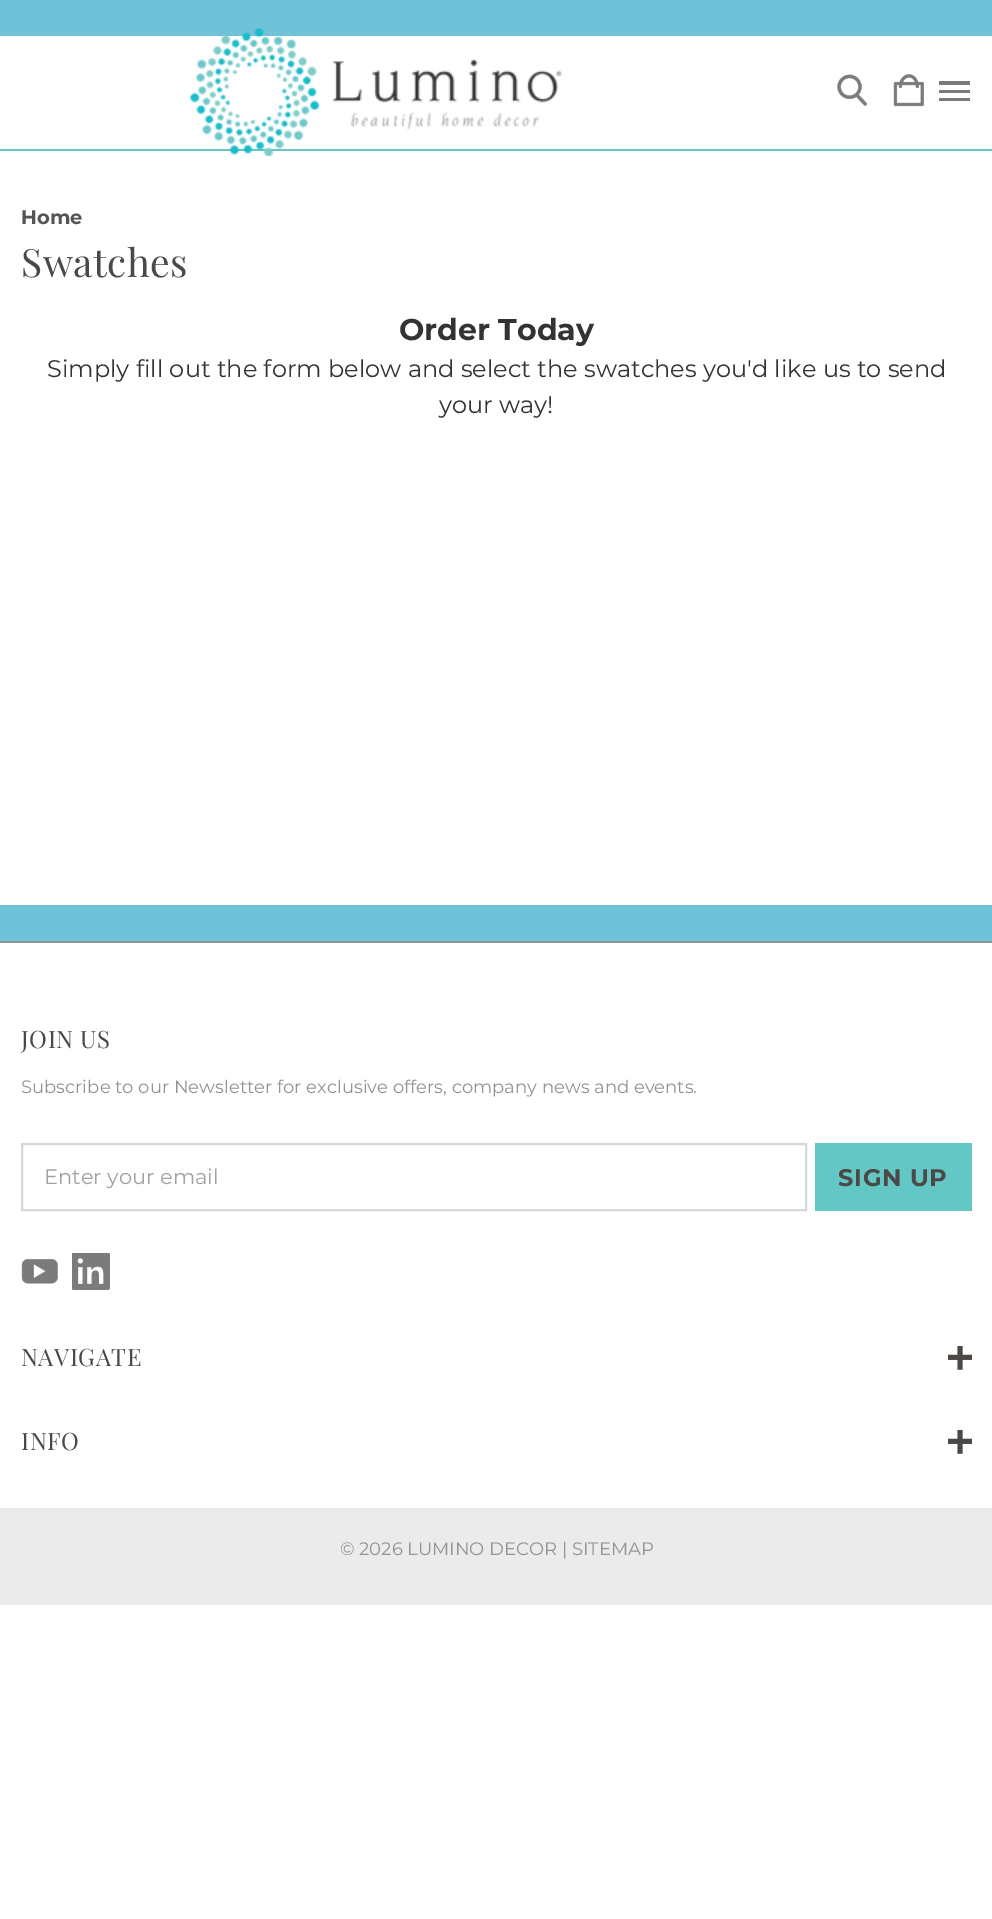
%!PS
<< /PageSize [992 1919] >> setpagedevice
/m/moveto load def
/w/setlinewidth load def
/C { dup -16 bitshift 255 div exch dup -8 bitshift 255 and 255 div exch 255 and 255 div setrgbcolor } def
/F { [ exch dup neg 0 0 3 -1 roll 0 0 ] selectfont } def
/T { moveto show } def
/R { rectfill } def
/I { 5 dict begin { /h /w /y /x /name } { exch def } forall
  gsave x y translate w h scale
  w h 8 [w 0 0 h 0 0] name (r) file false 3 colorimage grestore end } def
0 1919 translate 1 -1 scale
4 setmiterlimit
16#FFFFFF C
0 0 992 1919 R
16#63C7C5 C
0 149 992 2 R
16#6FC2D7 C
0 0 992 36 R
(1.rgb) 190 28 373 128 I
(2.rgb) 837 74 30 32 I
(3.rgb) 893 74 31 33 I
16#7B7B7B C
939 81 31 4 R
939 90 31 3 R
939 98 31 3 R
/Montserrat-Bold 19.5 F
16#545454 C
(Home) 21 224 T
/PlayfairDisplay-Regular 39 F
16#4B4846 C
21 277 m .5 0 (Swatches) ashow
/Montserrat-Bold 30 F
16#333333 C
(Order Today) 399 340 T
/Montserrat-Regular 24 F
(Simply fill out the form below and select the swatches you'd like us to send) 47 377 T
(your way!) 439 413 T
16#6FC2D7 C
0 905 992 36 R
16#909496 C
0 941 992 2 R
/PlayfairDisplay-Regular 24 F
16#4B4846 C
21 1048 m .5 0 (JOIN US) ashow
/Montserrat-Regular 18 F
16#909496 C
(Subscribe to our Newsletter for exclusive offers, company news and events.) 21 1093 T
16#D7D7D7 C
2 w
22 1144 784 66 rectstroke
/Montserrat-Regular 21 F
16#A2A2A2 C
(Enter your email) 44 1184 T
16#63C7C5 C
815 1143 157 68 R
/Montserrat-Bold 24 F
16#4B4846 C
838 1186 m .75 0 (SIGN UP) ashow
(4.rgb) 21 1259 37 25 I
(5.rgb) 72 1253 38 37 I
/PlayfairDisplay-Regular 24 F
21 1366 m .5 0 (NAVIGATE) ashow
(6.rgb) 948 1346 24 24 I
21 1450 m .5 0 (INFO) ashow
(6.rgb) 948 1430 24 24 I
16#EBEBEB C
0 1508 992 97 R
/Montserrat-Regular 18 F
16#909496 C
(© 2026 LUMINO DECOR | SITEMAP) 340 1555 T
showpage
